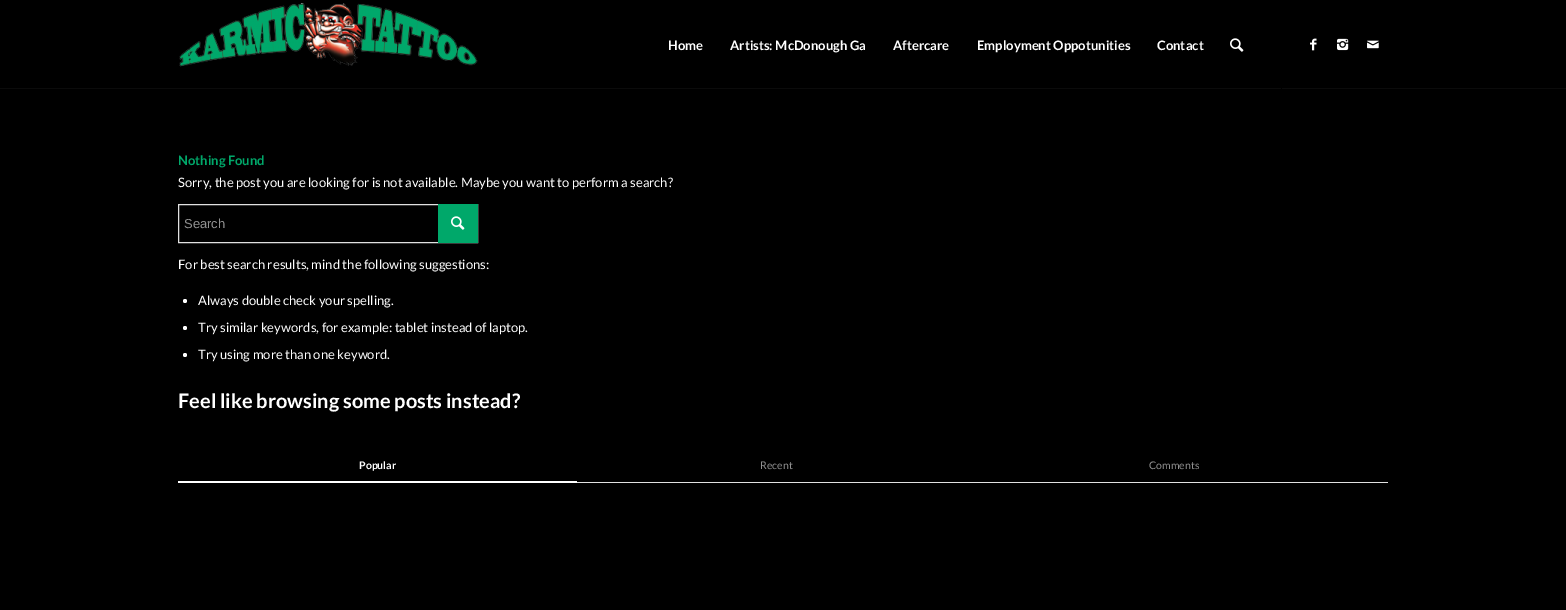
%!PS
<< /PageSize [1566 610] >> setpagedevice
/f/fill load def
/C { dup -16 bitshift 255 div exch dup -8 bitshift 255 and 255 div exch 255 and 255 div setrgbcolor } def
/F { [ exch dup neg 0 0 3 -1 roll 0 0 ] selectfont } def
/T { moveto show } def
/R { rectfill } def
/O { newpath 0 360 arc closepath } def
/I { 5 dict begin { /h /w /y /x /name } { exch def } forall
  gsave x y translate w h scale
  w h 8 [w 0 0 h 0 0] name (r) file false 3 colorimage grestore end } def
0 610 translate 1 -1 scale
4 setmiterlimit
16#000000 C
0 0 1566 610 R
(1.rgb) 179 3 299 64 I
16#0B0B0B C
0 88 1566 1 R
16#000000 C
1281 88 1 1 R
/Lato-Bold 13 F
16#FFFFFF C
(Home) 668 50 T
(Artists: McDonough Ga) 730 50 T
(Aftercare) 893 50 T
(Employment Oppotunities) 977 50 T
(Contact) 1157 50 T
(2.rgb) 1230 38 14 14 I
(3.rgb) 1310 38 7 13 I
(4.rgb) 1337 38 12 13 I
(5.rgb) 1367 40 12 9 I
16#00A86A C
(Nothing Found) 178 165 T
/Lato-Regular 13 F
16#FFFFFF C
(Sorry, the post you are looking for is not available. Maybe you want to perform a search?) 178 187 T
16#E1E1E1 C
178.5 204.5 299 38 rectstroke
/LiberationSans-Regular 13 F
16#919191 C
(Search) 184 228 T
16#00A86A C
438 204 40 39 R
(6.rgb) 451 216 14 14 I
/Lato-Regular 13 F
16#FFFFFF C
(For best search results, mind the following suggestions:) 178 269 T
185 301 2 O f
(Always double check your spelling.) 198 305 T
185 328 2 O f
(Try similar keywords, for example: tablet instead of laptop.) 198 332 T
185 355 2 O f
(Try using more than one keyword.) 198 359 T
/Lato-Bold 20 F
(Feel like browsing some posts instead?) 178 408 T
16#E1E1E1 C
577 482 811 1 R
16#FFFFFF C
178 481 399 2 R
/Lato-Bold 10.5 F
(Popular) 359 469 T
/Lato-Regular 10.5 F
16#919191 C
(Recent) 760 469 T
(Comments) 1149 469 T
showpage
